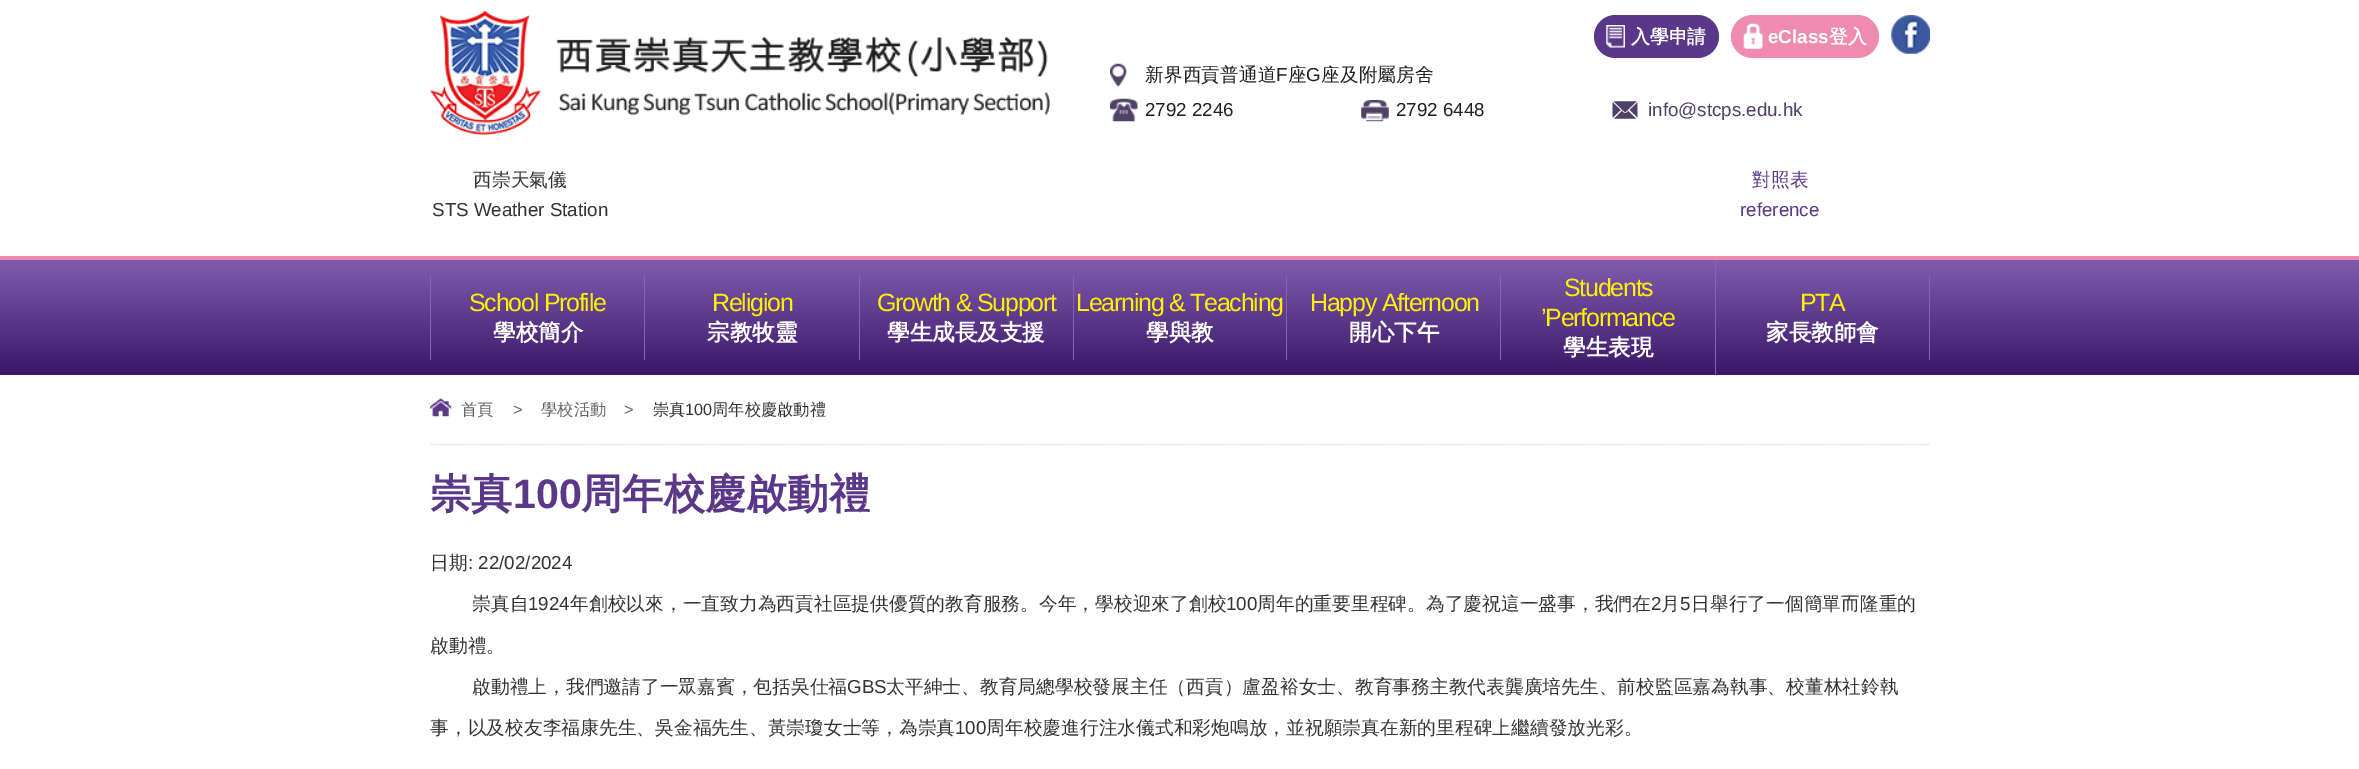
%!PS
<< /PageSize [2359 769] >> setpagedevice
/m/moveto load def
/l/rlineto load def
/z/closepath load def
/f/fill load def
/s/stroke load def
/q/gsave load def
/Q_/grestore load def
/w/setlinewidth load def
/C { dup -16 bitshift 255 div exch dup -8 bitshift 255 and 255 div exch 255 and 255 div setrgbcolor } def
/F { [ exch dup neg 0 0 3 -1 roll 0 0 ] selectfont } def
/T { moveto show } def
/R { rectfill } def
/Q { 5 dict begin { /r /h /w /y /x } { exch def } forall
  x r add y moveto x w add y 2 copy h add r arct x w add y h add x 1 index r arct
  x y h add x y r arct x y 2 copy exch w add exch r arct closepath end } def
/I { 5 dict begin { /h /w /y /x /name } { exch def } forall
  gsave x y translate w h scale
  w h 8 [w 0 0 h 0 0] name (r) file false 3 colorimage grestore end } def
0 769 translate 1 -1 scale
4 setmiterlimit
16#FFFFFF C
0 0 2359 769 R
(1.rgb) 430 10 620 125 I
16#5A3789 C
1594 15 125 43 21.5 Q f
(2.rgb) 1606 25 19 23 I
/WenQuanYiZenHei-Bold 18.75 F
16#FFFFFF C
(入學申請) 1631 43 T
16#EF8BAE C
1731 15 148 43 21.5 Q f
(3.rgb) 1743 23 20 26 I
/LiberationSans-Bold 18.75 F
16#FFFFFF C
(eClass) 1768 43 T
/WenQuanYiZenHei-Bold 18.75 F
(登入) 1829 43 T
(4.rgb) 1891 15 39 39 I
(5.rgb) 1110 63 17 24 I
/WenQuanYiZenHei-Medium 18.75 F
16#202020 C
(新界西貢普通道) 1145 81 T
/LiberationSans-Regular 18.75 F
(F) 1276 81 T
/WenQuanYiZenHei-Medium 18.75 F
(座) 1288 81 T
/LiberationSans-Regular 18.75 F
(G) 1306 81 T
/WenQuanYiZenHei-Medium 18.75 F
(座及附屬房舍) 1321 81 T
(6.rgb) 1110 98 28 24 I
/LiberationSans-Regular 18.75 F
(2792 2246) 1145 116 T
(7.rgb) 1361 100 28 22 I
(2792 6448) 1396 116 T
(8.rgb) 1612 101 26 18 I
16#514068 C
(info@stcps.edu.hk) 1648 116 T
/WenQuanYiZenHei-Medium 18.75 F
16#333333 C
(西崇天氣儀) 473 186 T
/LiberationSans-Regular 18.75 F
(STS Weather Station) 432 216 T
/WenQuanYiZenHei-Medium 18.75 F
16#5A3789 C
(對照表) 1752 186 T
/LiberationSans-Regular 18.75 F
(reference) 1740 216 T
q 0 260 m 2359 0 l 0 115 l -2359 0 l z clip newpath
<< /ShadingType 2 /ColorSpace /DeviceRGB /Coords [1180 260 1180 375] /Extend [true true] /Function << /FunctionType 2 /Domain [0 1] /C0 [.502 .361 .69] /C1 [.227 .09 .408] /N 1 >> >> shfill Q_
16#EF8BAE C
0 256 2359 4 R
16#8367A8 C
644 275 1 85 R
430 275 1 85 R
/LiberationSans-Regular 25 F
16#FFF000 C
469 311 m -1.25 0 (School Profile) ashow
/WenQuanYiZenHei-Bold 22.5 F
16#FFFFFF C
(學校簡介) 493 340 T
16#8367A8 C
859 275 1 85 R
/LiberationSans-Regular 25 F
16#FFF000 C
712 311 m -1.25 0 (Religion) ashow
/WenQuanYiZenHei-Bold 22.5 F
16#FFFFFF C
(宗教牧靈) 707 340 T
16#8367A8 C
1073 275 1 85 R
/LiberationSans-Regular 25 F
16#FFF000 C
877 311 m -1.25 0 (Growth & Support) ashow
/WenQuanYiZenHei-Bold 22.5 F
16#FFFFFF C
(學生成長及支援) 887 340 T
16#8367A8 C
1286 275 1 85 R
/LiberationSans-Regular 25 F
16#FFF000 C
1076 311 m -1.25 0 (Learning & Teaching) ashow
/WenQuanYiZenHei-Bold 22.5 F
16#FFFFFF C
(學與教) 1146 340 T
16#8367A8 C
1500 275 1 85 R
/LiberationSans-Regular 25 F
16#FFF000 C
1310 311 m -1.25 0 (Happy Afternoon) ashow
/WenQuanYiZenHei-Bold 22.5 F
16#FFFFFF C
(開心下午) 1349 340 T
16#8367A8 C
1715 260 1 115 R
/LiberationSans-Regular 25 F
16#FFF000 C
1564 296 m -1.25 0 (Students) ashow
1541 326 m -1.25 0 (’Performance) ashow
/WenQuanYiZenHei-Bold 22.5 F
16#FFFFFF C
(學生表現) 1563 355 T
16#8367A8 C
1929 275 1 85 R
/LiberationSans-Regular 25 F
16#FFF000 C
1800 311 m -1.25 0 (PTA) ashow
/WenQuanYiZenHei-Bold 22.5 F
16#FFFFFF C
(家長教師會) 1766 340 T
16#DDDDDD C
1.2 w
[1.25 1.25] 0 setdash
430 444.5 m 1500 0 l s
(9.rgb) 430 398 22 19 I
/WenQuanYiZenHei-Medium 16.25 F
16#666666 C
(首頁) 461 415 T
/LiberationSans-Regular 16.25 F
(>) 513 415 T
/WenQuanYiZenHei-Medium 16.25 F
(學校活動) 541 415 T
/LiberationSans-Regular 16.25 F
(>) 624 415 T
/WenQuanYiZenHei-Medium 16.25 F
16#333333 C
(崇真) 653 415 T
/LiberationSans-Regular 16.25 F
(100) 685 415 T
/WenQuanYiZenHei-Medium 16.25 F
(周年校慶啟動禮) 712 415 T
/WenQuanYiZenHei-Bold 41.25 F
16#5A3789 C
(崇真) 430 508 T
/LiberationSans-Bold 41.25 F
(100) 513 508 T
/WenQuanYiZenHei-Bold 41.25 F
(周年校慶啟動禮) 581 508 T
/WenQuanYiZenHei-Medium 18.75 F
16#333333 C
(日期) 430 569 T
/LiberationSans-Regular 18.75 F
(: 22/02/2024) 468 569 T
/WenQuanYiZenHei-Medium 18.75 F
(崇真自) 472 610 T
/LiberationSans-Regular 18.75 F
(1924) 528 610 T
/WenQuanYiZenHei-Medium 18.75 F
(年創校以來，一直致力為西貢社區提供優質的教育服務。今年，學校迎來了創校) 570 610 T
/LiberationSans-Regular 18.75 F
(100) 1226 610 T
/WenQuanYiZenHei-Medium 18.75 F
(周年的重要里程碑。為了慶祝這一盛事，我們在) 1257 610 T
/LiberationSans-Regular 18.75 F
(2) 1651 610 T
/WenQuanYiZenHei-Medium 18.75 F
(月) 1661 610 T
/LiberationSans-Regular 18.75 F
(5) 1680 610 T
/WenQuanYiZenHei-Medium 18.75 F
(日舉行了一個簡單而隆重的) 1691 610 T
(啟動禮。) 430 652 T
(啟動禮上，我們邀請了一眾嘉賓，包括吳仕福) 472 693 T
/LiberationSans-Regular 18.75 F
(GBS) 847 693 T
/WenQuanYiZenHei-Medium 18.75 F
(太平紳士、教育局總學校發展主任（西貢）盧盈裕女士、教育事務主教代表龔廣培先生、前校監區嘉為執事、校董林社鈴執) 886 693 T
(事，以及校友李福康先生、吳金福先生、黃崇瓊女士等，為崇真) 430 734 T
/LiberationSans-Regular 18.75 F
(100) 955 734 T
/WenQuanYiZenHei-Medium 18.75 F
(周年校慶進行注水儀式和彩炮鳴放，並祝願崇真在新的里程碑上繼續發放光彩。) 986 734 T
showpage
